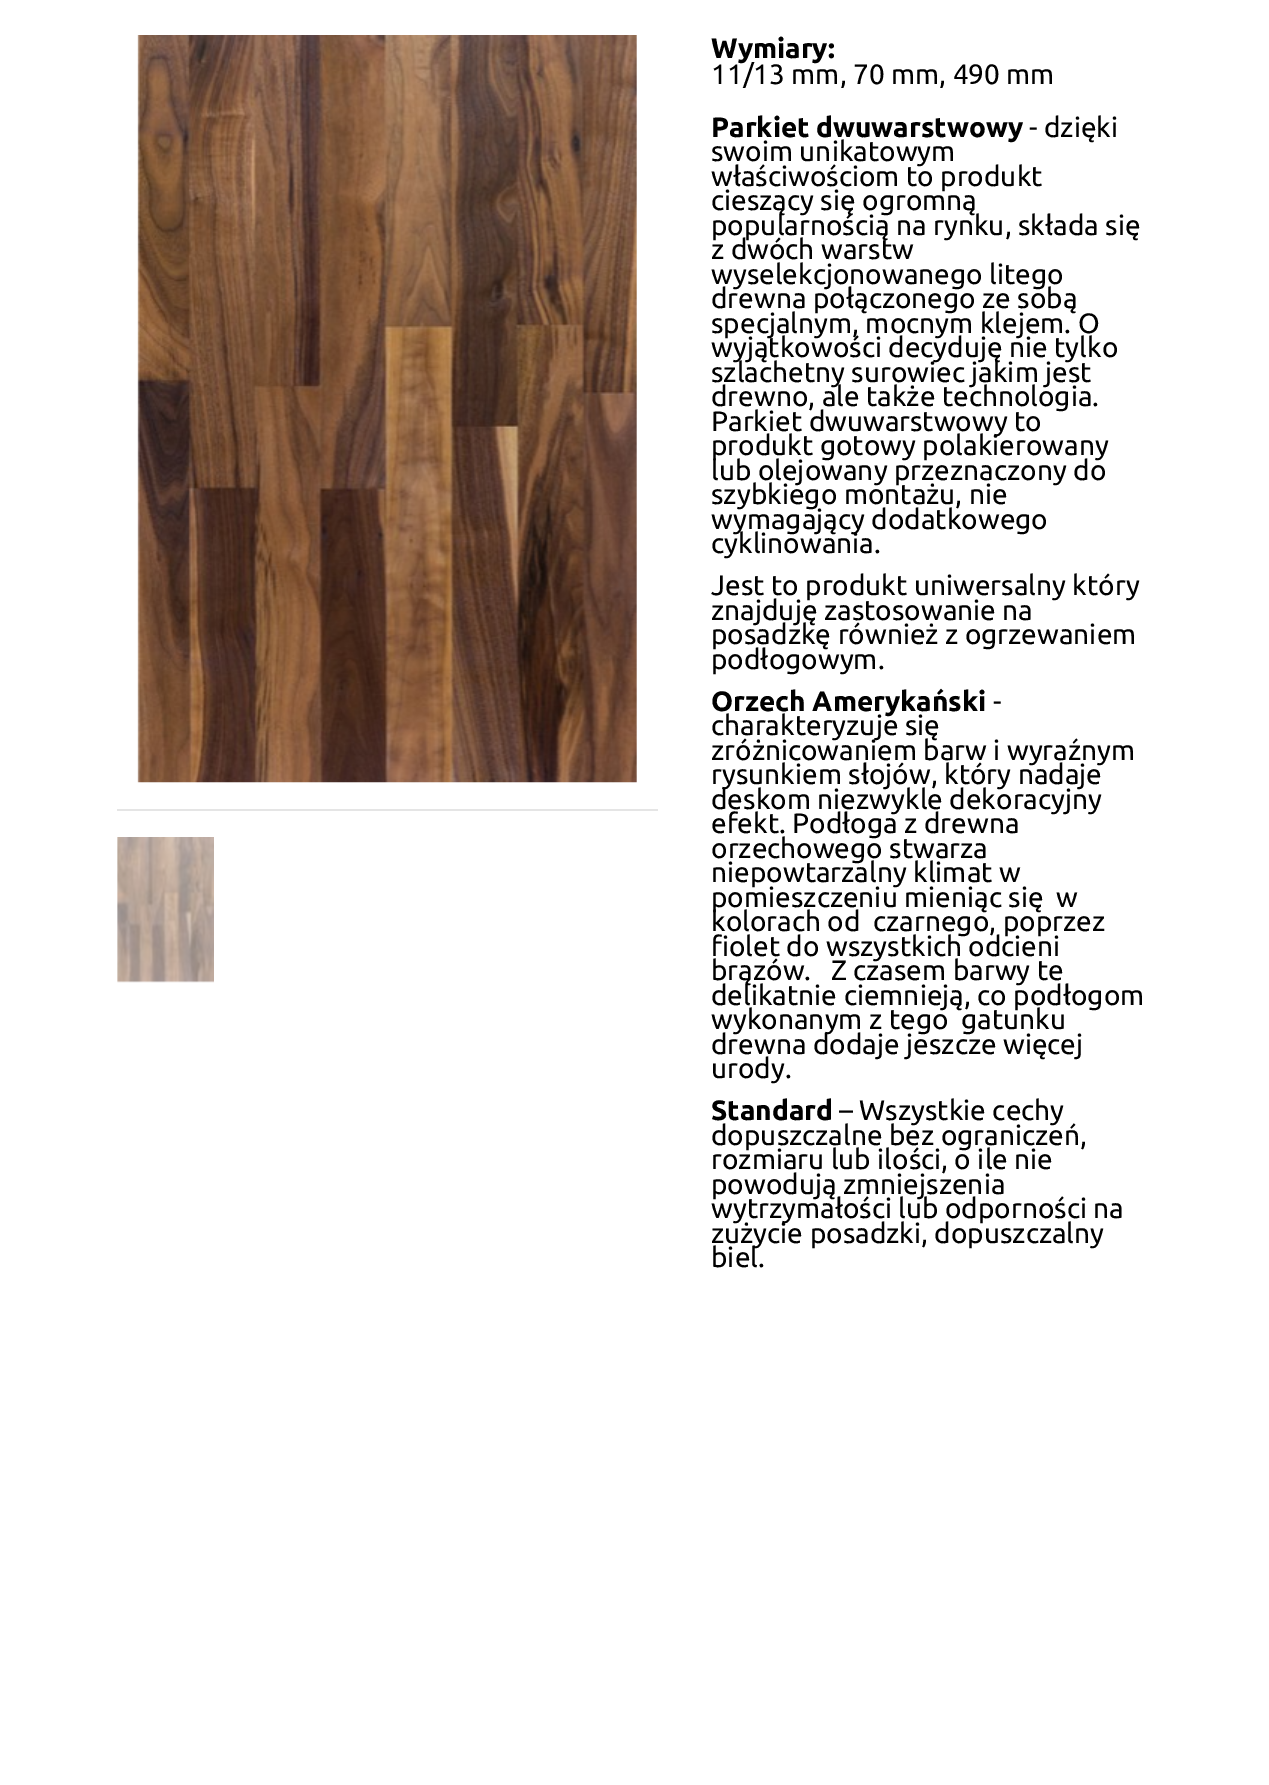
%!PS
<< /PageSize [1269 1785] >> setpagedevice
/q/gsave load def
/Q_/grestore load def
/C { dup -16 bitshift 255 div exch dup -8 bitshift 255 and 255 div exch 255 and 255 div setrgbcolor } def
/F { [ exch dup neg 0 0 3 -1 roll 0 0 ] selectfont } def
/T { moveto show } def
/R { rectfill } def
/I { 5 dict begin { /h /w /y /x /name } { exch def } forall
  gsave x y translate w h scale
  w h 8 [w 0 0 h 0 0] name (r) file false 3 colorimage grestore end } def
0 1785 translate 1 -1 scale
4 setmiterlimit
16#FFFFFF C
0 0 1269 1785 R
(1.rgb) 137 35 500 748 I
16#E5E5E5 C
117 809 541 2 R
(2.rgb) 117 837 97 146 I
/Ubuntu-Bold 28 F
16#000000 C
(Wymiary:) 711 58 T
q
711 35 437 53 rectclip
/Ubuntu-Regular 28 F
(11/13 mm, 70 mm, 490 mm) 711 84 T
Q_
(Parkiet dwuwarstwowy) 711 137 T
/Ubuntu-Regular 28 F
(- dzięki) 1029 137 T
(swoim unikatowym) 711 161 T
(właściwościom to produkt) 711 186 T
(cieszący się ogromną) 711 210 T
(popularnością na rynku, składa się) 711 235 T
(z dwóch warstw) 711 259 T
(wyselekcjonowanego litego) 711 284 T
(drewna połączonego ze sobą) 711 308 T
(specjalnym, mocnym klejem. O) 711 333 T
(wyjątkowości decyduję nie tylko) 711 357 T
(szlachetny surowiec jakim jest) 711 382 T
(drewno, ale także technologia.) 711 406 T
(Parkiet dwuwarstwowy to) 711 431 T
(produkt gotowy polakierowany) 711 455 T
(lub olejowany przeznaczony do) 711 480 T
(szybkiego montażu, nie) 711 504 T
(wymagający dodatkowego) 711 529 T
(cyklinowania.) 711 553 T
(Jest to produkt uniwersalny który) 711 595 T
(znajduję zastosowanie na) 711 620 T
(posadzkę również z ogrzewaniem) 711 644 T
(podłogowym.) 711 669 T
/Ubuntu-Bold 28 F
(Orzech Amerykański) 711 711 T
/Ubuntu-Regular 28 F
(-) 993 711 T
(charakteryzuje się) 711 735 T
(zróżnicowaniem barw i wyraźnym) 711 760 T
(rysunkiem słojów, który nadaje) 711 784 T
(deskom niezwykle dekoracyjny) 711 809 T
(efekt. Podłoga z drewna) 711 833 T
(orzechowego stwarza) 711 858 T
(niepowtarzalny klimat w) 711 882 T
(pomieszczeniu mieniąc się  w) 711 907 T
(kolorach od  czarnego, poprzez) 711 931 T
(fiolet do wszystkich odcieni) 711 956 T
(brązów.   Z czasem barwy te) 711 980 T
(delikatnie ciemnieją, co podłogom) 711 1005 T
(wykonanym z tego  gatunku) 711 1029 T
(drewna dodaje jeszcze więcej) 711 1054 T
(urody.) 711 1078 T
/Ubuntu-Bold 28 F
(Standard) 711 1120 T
/Ubuntu-Regular 28 F
(– Wszystkie cechy) 839 1120 T
(dopuszczalne bez ograniczeń,) 711 1145 T
(rozmiaru lub ilości, o ile nie) 711 1169 T
(powodują zmniejszenia) 711 1194 T
(wytrzymałości lub odporności na) 711 1218 T
(zużycie posadzki, dopuszczalny) 711 1243 T
(biel.) 711 1267 T
showpage
